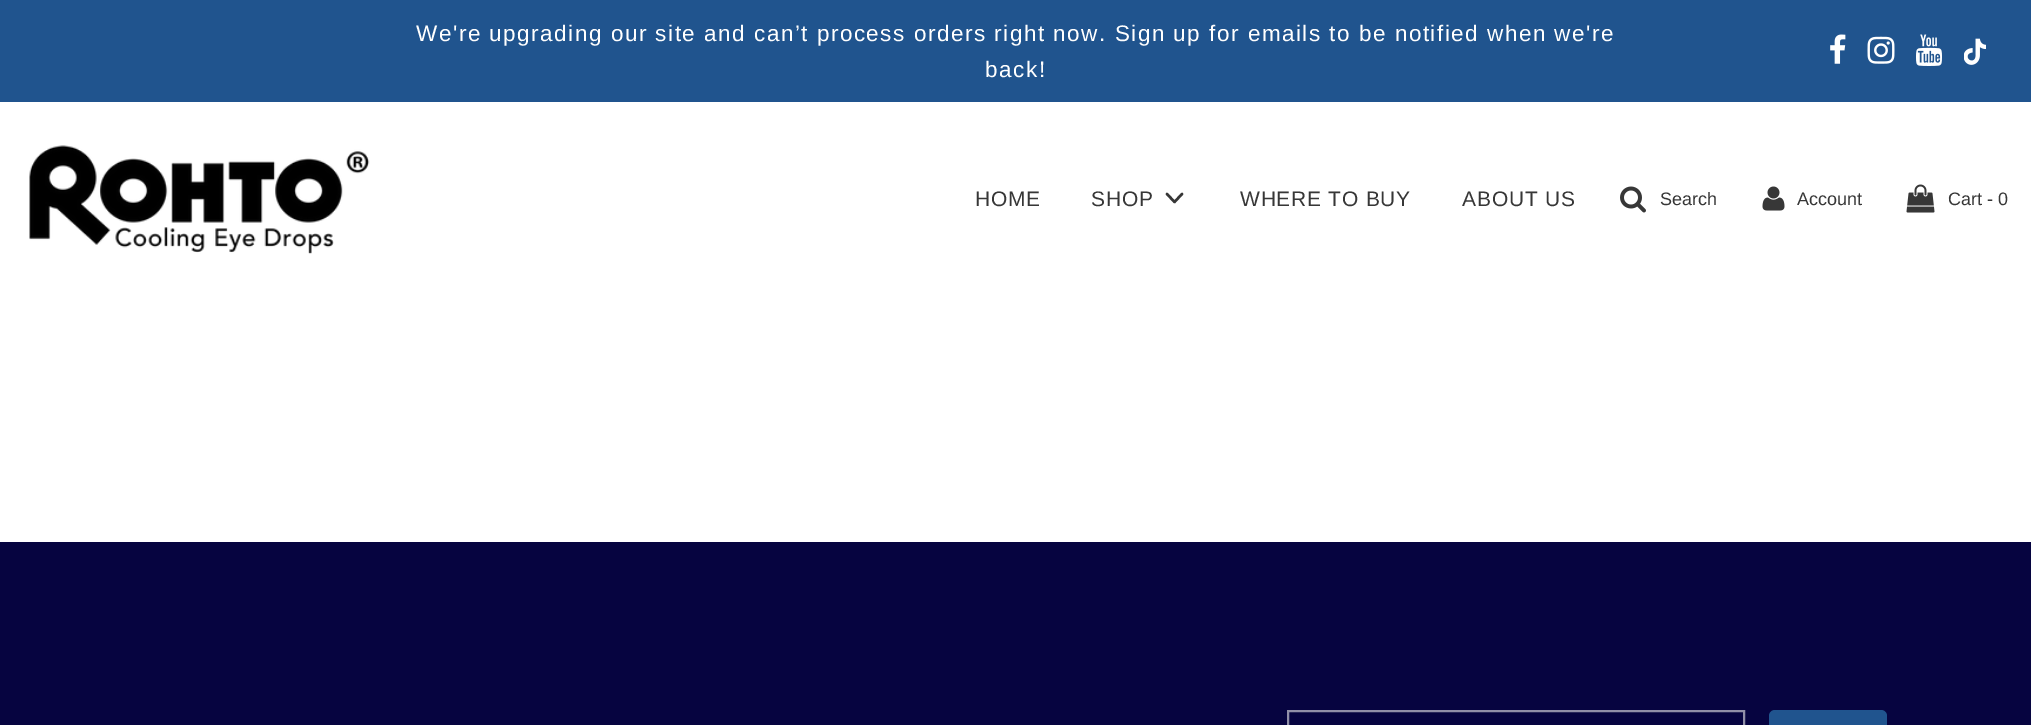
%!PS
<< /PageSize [2031 725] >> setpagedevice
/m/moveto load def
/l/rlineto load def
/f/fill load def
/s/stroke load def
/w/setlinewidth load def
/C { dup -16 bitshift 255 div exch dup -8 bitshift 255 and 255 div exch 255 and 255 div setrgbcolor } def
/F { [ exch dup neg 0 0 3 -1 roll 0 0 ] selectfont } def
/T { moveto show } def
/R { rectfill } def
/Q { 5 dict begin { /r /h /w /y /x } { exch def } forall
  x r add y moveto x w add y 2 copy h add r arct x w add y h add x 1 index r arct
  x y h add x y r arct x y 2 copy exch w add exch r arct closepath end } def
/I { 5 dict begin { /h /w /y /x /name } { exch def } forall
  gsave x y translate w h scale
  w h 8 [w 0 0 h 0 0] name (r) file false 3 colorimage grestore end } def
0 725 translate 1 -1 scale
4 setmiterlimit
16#FFFFFF C
0 0 2031 725 R
16#20548E C
0 0 2031 102 R
/LiberationSans-Regular 22.5 F
16#FFFFFF C
416 41 m 1.5 0 (We're upgrading our site and can’t process orders right now. Sign up for emails to be notified when we're) ashow
985 77 m 1.5 0 (back!) ashow
(1.rgb) 1830 34 16 30 I
(2.rgb) 1867 36 28 28 I
(3.rgb) 1916 34 26 32 I
(4.rgb) 1964 38 22 27 I
(5.rgb) 29 145 341 109 I
/LiberationSans-Regular 21 F
16#373737 C
975 206 m .75 0 (HOME) ashow
1091 206 m .75 0 (SHOP) ashow
2.5 w
1 setlinecap
1 setlinejoin
1167 194 m 7.5 8 l 7.5 -8 l s
1240 206 m .75 0 (WHERE TO BUY) ashow
1462 206 m .75 0 (ABOUT US) ashow
(6.rgb) 1620 186 26 27 I
/LiberationSans-Regular 18 F
(Search) 1660 205 T
(7.rgb) 1762 186 23 25 I
(Account) 1797 205 T
(8.rgb) 1906 184 29 29 I
(Cart - 0) 1948 205 T
16#060440 C
0 542 2031 183 R
16#9190A8 C
2 w
0 setlinecap
0 setlinejoin
1288 711 456 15 rectstroke
16#20548E C
1769 710 118 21 6 Q f
showpage
